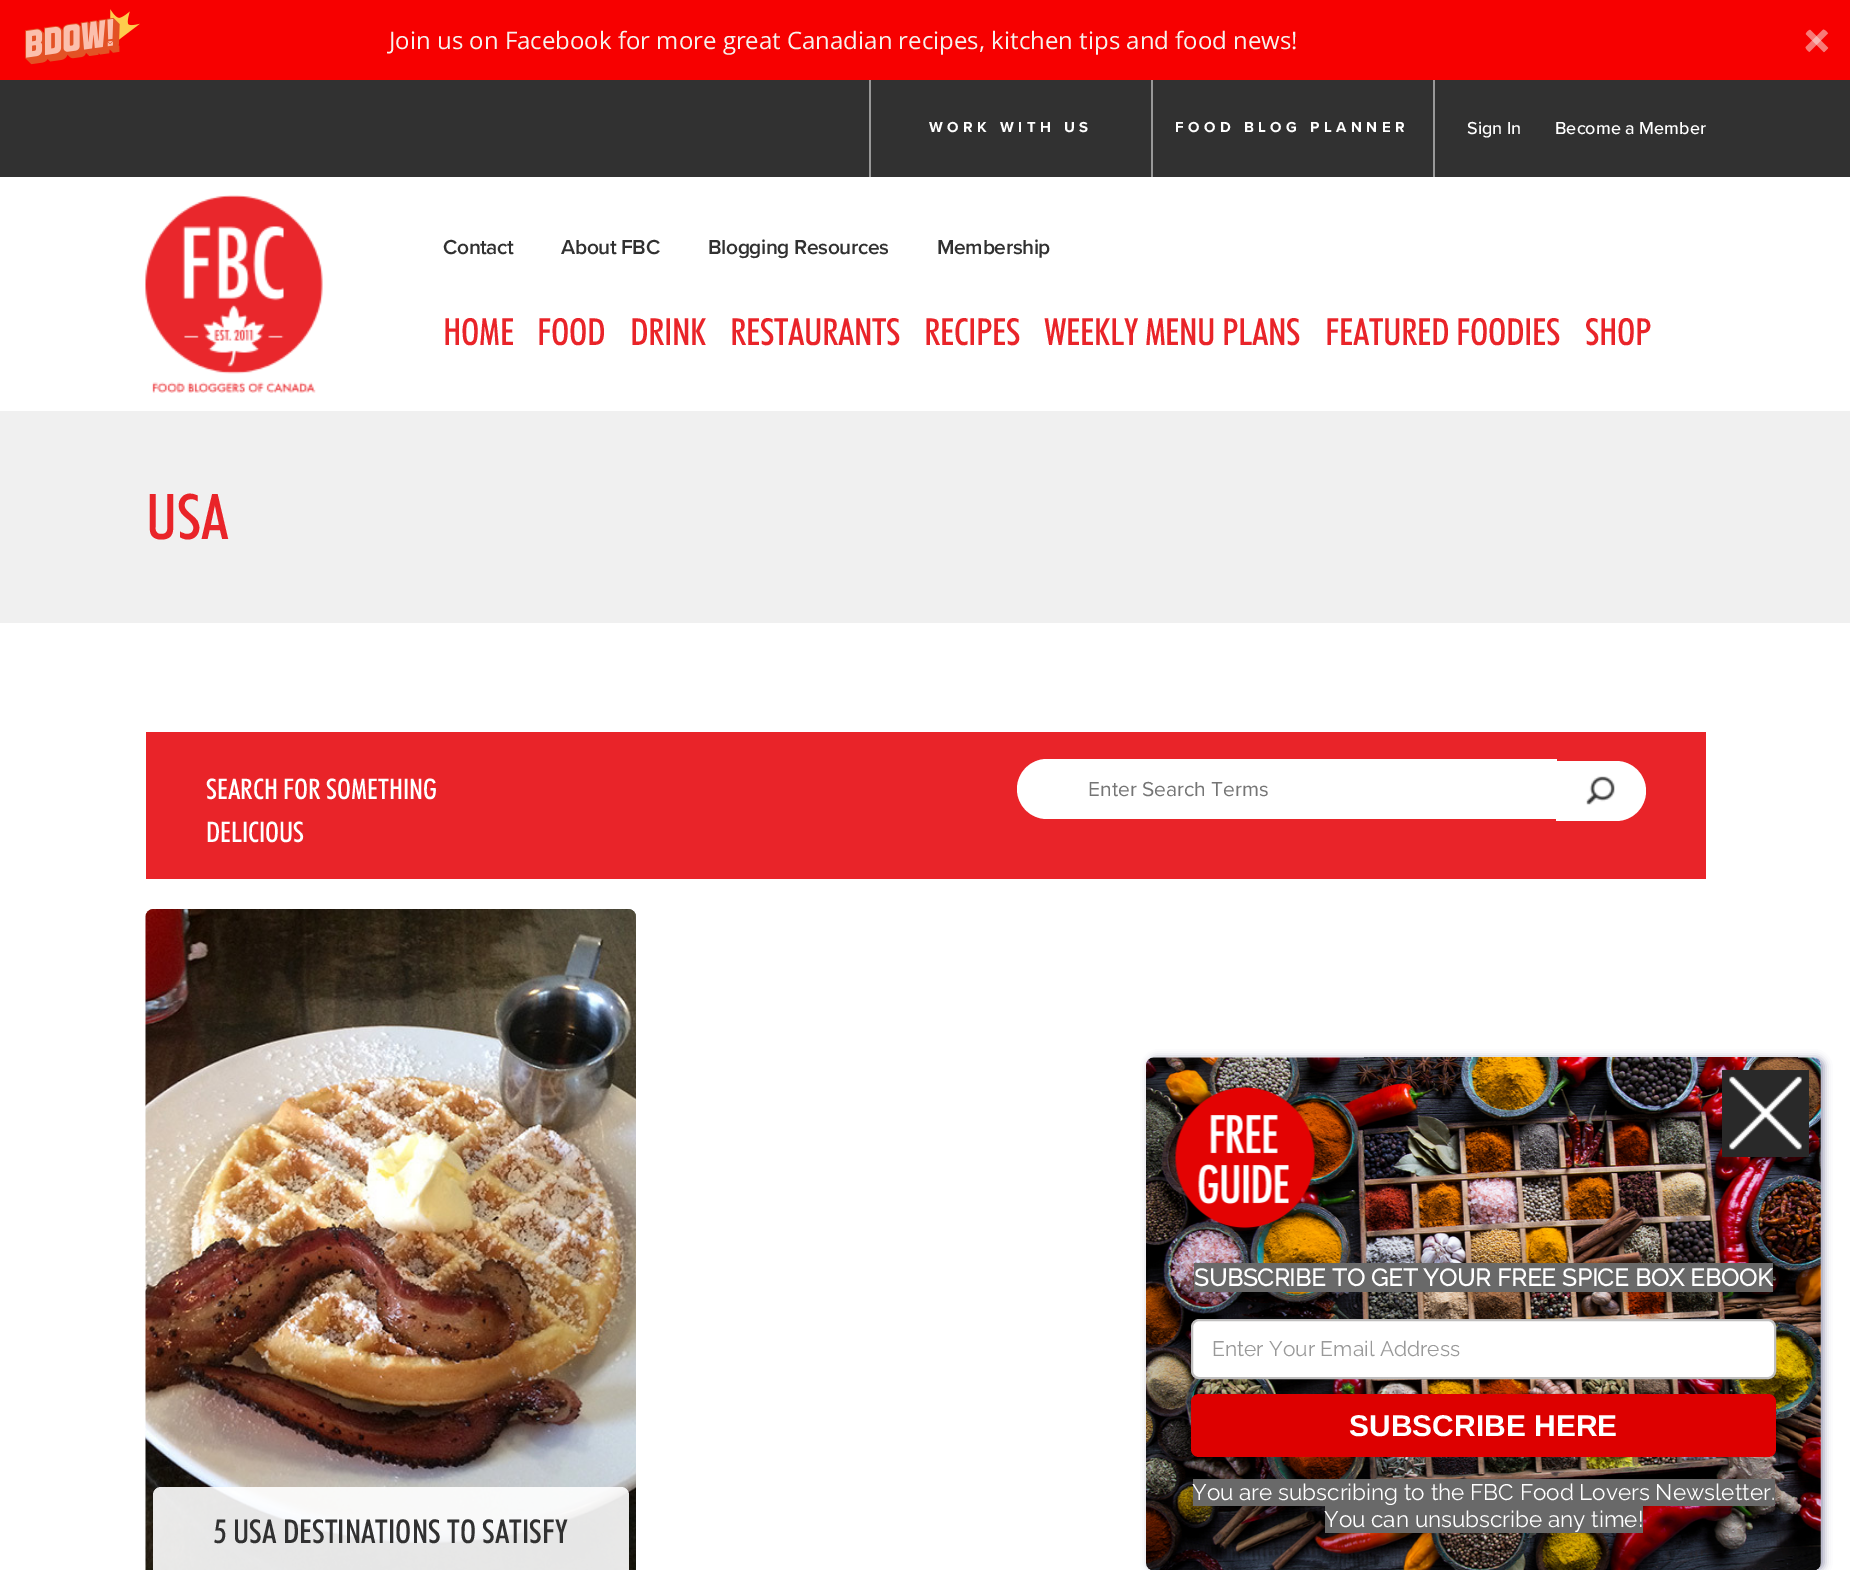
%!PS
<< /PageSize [1850 1570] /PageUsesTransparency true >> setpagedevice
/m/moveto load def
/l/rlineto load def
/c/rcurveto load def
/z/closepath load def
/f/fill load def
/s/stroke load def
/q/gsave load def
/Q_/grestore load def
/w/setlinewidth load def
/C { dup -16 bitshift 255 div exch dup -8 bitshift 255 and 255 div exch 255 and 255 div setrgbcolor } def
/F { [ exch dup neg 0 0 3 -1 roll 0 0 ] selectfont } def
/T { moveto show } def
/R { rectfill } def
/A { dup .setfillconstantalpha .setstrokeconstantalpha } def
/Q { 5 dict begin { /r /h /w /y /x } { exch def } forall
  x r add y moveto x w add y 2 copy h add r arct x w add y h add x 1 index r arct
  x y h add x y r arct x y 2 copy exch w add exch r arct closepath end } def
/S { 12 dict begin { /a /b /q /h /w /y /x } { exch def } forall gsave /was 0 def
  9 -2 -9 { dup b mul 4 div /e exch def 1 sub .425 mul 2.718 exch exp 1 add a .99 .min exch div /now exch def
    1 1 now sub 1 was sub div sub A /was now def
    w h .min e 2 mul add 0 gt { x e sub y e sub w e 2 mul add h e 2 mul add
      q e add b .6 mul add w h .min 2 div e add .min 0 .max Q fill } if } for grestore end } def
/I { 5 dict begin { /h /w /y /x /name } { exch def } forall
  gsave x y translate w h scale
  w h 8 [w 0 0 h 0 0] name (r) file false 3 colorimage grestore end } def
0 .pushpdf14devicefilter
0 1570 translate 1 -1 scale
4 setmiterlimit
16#FFFFFF C
0 0 1850 1570 R
16#F70000 C
0 0 1850 80 R
(1.rgb) 25 9 115 56 I
/OpenSans-Regular 24 F
16#F7F3EE C
(Join us on Facebook for more great Canadian recipes, kitchen tips and food news!) 389 49 T
(2.rgb) 1805 29 24 24 I
16#313131 C
0 80 1850 97 R
16#989898 C
869 80 2 97 R
1151 80 2 97 R
/ProximaNova-Bold 15 F
16#FFFFFF C
929 132 m 4.5 0 (WORK WITH US) ashow
16#989898 C
1433 80 2 97 R
16#FFFFFF C
1175 132 m 4.5 0 (FOOD BLOG PLANNER) ashow
/ProximaNova-Medium 18 F
(Sign In) 1467 134 T
(Become a Member) 1555 134 T
(3.rgb) 145 195 178 198 I
/ProximaNova-SemiBold 21 F
16#313131 C
443 254 m -.4 0 (Contact) ashow
561 254 m -.4 0 (About FBC) ashow
708 254 m -.4 0 (Blogging Resources) ashow
937 254 m -.4 0 (Membership) ashow
/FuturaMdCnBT-Medium 37.5 F
16#E92429 C
443 345 m -.4 0 (HOME) ashow
537 345 m -.4 0 (FOOD) ashow
630 345 m -.4 0 (DRINK) ashow
730 345 m -.4 0 (RESTAURANTS) ashow
924 345 m -.4 0 (RECIPES) ashow
1044 345 m -.4 0 (WEEKLY MENU PLANS) ashow
1325 345 m -.4 0 (FEATURED FOODIES) ashow
1585 345 m -.4 0 (SHOP) ashow
16#F0F0F0 C
0 411 1850 212 R
/FuturaMdCnBT-Medium 63 F
16#E92429 C
(USA) 146 539 T
146 732 1560 147 R
/FuturaMdCnBT-Medium 28.5 F
16#FFFFFF C
(SEARCH FOR SOMETHING) 206 799 T
(DELICIOUS) 206 842 T
1047 759 m 510 0 l 0 60 l -510 0 l -16.5 0 -30 -13.5 -30 -30 c 0 -16.5 13.5 -30 30 -30 c z f
/ProximaNova-Regular 21 F
16#757575 C
(Enter Search Terms) 1088 796 T
16#FFFFFF C
1556 761 m 60 0 l 16.5 0 30 13.5 30 30 c 0 16.5 -13.5 30 -30 30 c -60 0 l z f
(4.rgb) 1586 776 29 29 I
(5.rgb) 145 909 491 661 I
0.9 A
153 1487 476 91 8 Q f
/FuturaMdCnBT-Medium 33 F
1 A
16#313131 C
(5 USA DESTINATIONS TO SATISFY) 214 1543 T
16#565683 C
1149 1058 675 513 8 4 .6 S
16#FFFFFF C
1146 1058 675 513 8 Q f
(7.rgb) 1146 1057 675 513 I
16#292929 C
1722 1070 87 87 R
(6.rgb) 1729 1076 73 74 I
(8.rgb) 1175 1087 140 142 I
16#696969 C
1194 1263 579 29 R
/Raleway-Bold 24 F
16#FFFFFF C
(SUBSCRIBE TO GET YOUR FREE SPICE BOX EBOOK) 1194 1286 T
1192 1320 583 58 7 Q q f Q_
16#BFBEBE C
2 w
s
/Raleway-Thin 21 F
16#999999 C
(Enter Your Email Address) 1212 1356 T
16#DD0000 C
1191 1394 585 63 8 Q f
/LiberationSans-Bold 30 F
16#FFFFFF C
(SUBSCRIBE HERE) 1349 1436 T
16#696969 C
1193 1479 582 27 R
/Raleway-Thin 22.5 F
16#FFFFFF C
(You are subscribing to the FBC Food Lovers Newsletter.) 1192 1500 T
16#696969 C
1325 1506 318 27 R
16#FFFFFF C
(You can unsubscribe any time!) 1324 1527 T
.poppdf14devicefilter showpage
